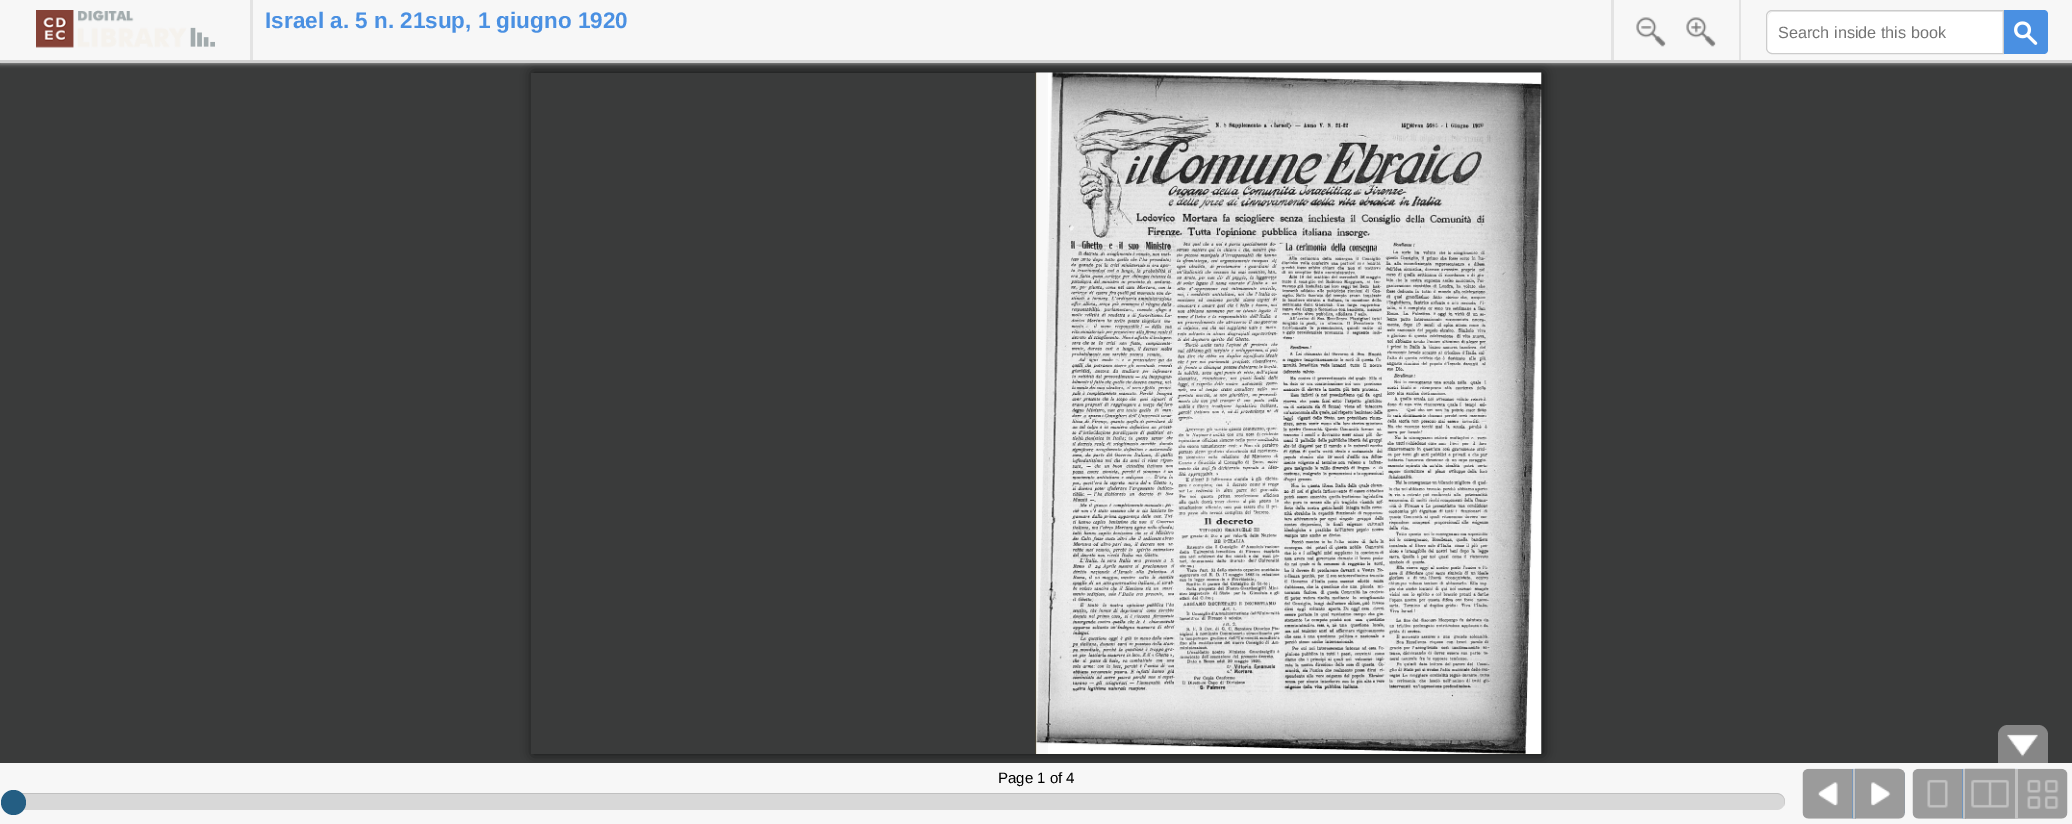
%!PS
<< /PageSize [2072 824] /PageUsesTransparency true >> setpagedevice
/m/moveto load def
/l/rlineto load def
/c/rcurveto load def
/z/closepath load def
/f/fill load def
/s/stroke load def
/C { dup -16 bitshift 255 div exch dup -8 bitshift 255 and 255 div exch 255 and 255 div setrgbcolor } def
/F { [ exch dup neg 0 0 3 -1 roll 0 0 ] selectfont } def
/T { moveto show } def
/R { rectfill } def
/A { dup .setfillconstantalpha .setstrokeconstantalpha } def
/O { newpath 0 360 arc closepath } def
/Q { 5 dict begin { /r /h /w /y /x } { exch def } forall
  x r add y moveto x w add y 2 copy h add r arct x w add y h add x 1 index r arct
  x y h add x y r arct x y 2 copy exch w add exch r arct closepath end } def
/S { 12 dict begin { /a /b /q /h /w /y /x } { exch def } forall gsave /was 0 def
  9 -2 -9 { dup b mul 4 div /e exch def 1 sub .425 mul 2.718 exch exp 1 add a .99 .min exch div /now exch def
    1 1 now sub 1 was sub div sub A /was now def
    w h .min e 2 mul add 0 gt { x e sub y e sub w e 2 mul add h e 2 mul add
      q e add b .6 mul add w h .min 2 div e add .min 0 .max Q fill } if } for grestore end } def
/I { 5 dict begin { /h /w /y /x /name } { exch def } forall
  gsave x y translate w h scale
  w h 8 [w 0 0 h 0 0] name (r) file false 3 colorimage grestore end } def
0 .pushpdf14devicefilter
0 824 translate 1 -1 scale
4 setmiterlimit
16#3A3B3B C
0 0 2072 824 R
16#999999 C
0 1 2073 63 0 2 1 S
16#111111 C
533 73 1010 681 0 6 1 S
16#F7F7F7 C
0 0 1739 60 R
16#D1D1D1 C
0 60 2072 3 R
16#E3E3E3 C
250 0 3 60 R
(1.rgb) 36 10 179 38 I
/LiberationSans-Bold 22.5 F
16#4A90E2 C
(Israel a. 5 n. 21sup, 1 giugno 1920) 265 28 T
16#E3E3E3 C
1611 0 3 60 R
1739 0 2 60 R
(2.rgb) 1636 17 30 30 I
(3.rgb) 1686 17 30 30 I
16#F7F7F7 C
1741 0 331 60 R
16#FFFFFF C
1772 10 m 232 0 l 0 44 l -232 0 l -3.5 0 -6 -2.5 -6 -6 c 0 -32 l 0 -3.5 2.5 -6 6 -6 c z f
16#ECECEC C
1772 12 m 230 0 l 0 41 l 1 0 l 0 -42 l -230 0 l -4 0 -5 4 -5 7 c 0 -3 2 -6 4 -6 c z f
16#CCCCCC C
1772 10.5 m 231.5 0 l 0 43 l -231.5 0 l -3 0 -5.5 -2.5 -5.5 -5.5 c 0 -32 l 0 -3 2.5 -5.5 5.5 -5.5 c z s
/LiberationSans-Regular 16.25 F
16#757575 C
(Search inside this book) 1778 38 T
16#4A90E2 C
2004 10 m 40 0 l 2 0 4 2 4 4 c 0 36 l 0 2 -2 4 -4 4 c -40 0 l z f
(4.rgb) 2014 21 24 24 I
16#3A3B3B C
531 73 505 681 R
16#FEFDEB C
1036 73 505 681 R
(6.rgb) 1036 72 506 682 I
(5.rgb) 1035 72 13 682 I
16#F7F7F7 C
0 763 2072 61 R
16#868686 C
2008 725 m 30 0 l 5.5 0 10 4.5 10 10 c 0 28 l -50 0 l 0 -28 l 0 -5.5 4.5 -10 10 -10 c z f
(7.rgb) 2007 734 31 23 I
/LiberationSans-Regular 15 F
16#000000 C
(Page 1 of 4) 998 783 T
(8.rgb) 1802 768 53 51 I
16#C1C1C1 C
1853 769 3 50 R
(9.rgb) 1855 768 50 51 I
(10.rgb) 1912 768 53 51 I
1963 769 3 50 R
(11.rgb) 1965 768 50 51 I
(12.rgb) 2015 768 53 51 I
2015 769 3 50 R
16#D8D8D8 C
13 793 1772 17 8.5 Q f
0.39 A
16#9B9A9B C
21 794 m 1757 0 l 6 1 8 7 6 12 c 3 -6 -1 -13 -8 -13 c -1754 0 l -4 0 -8 3 -9 6 c 1 -3 4 -5 8 -5 c z f
1 A
16#245E83 C
13.5 802.5 12.5 O f
.poppdf14devicefilter showpage
